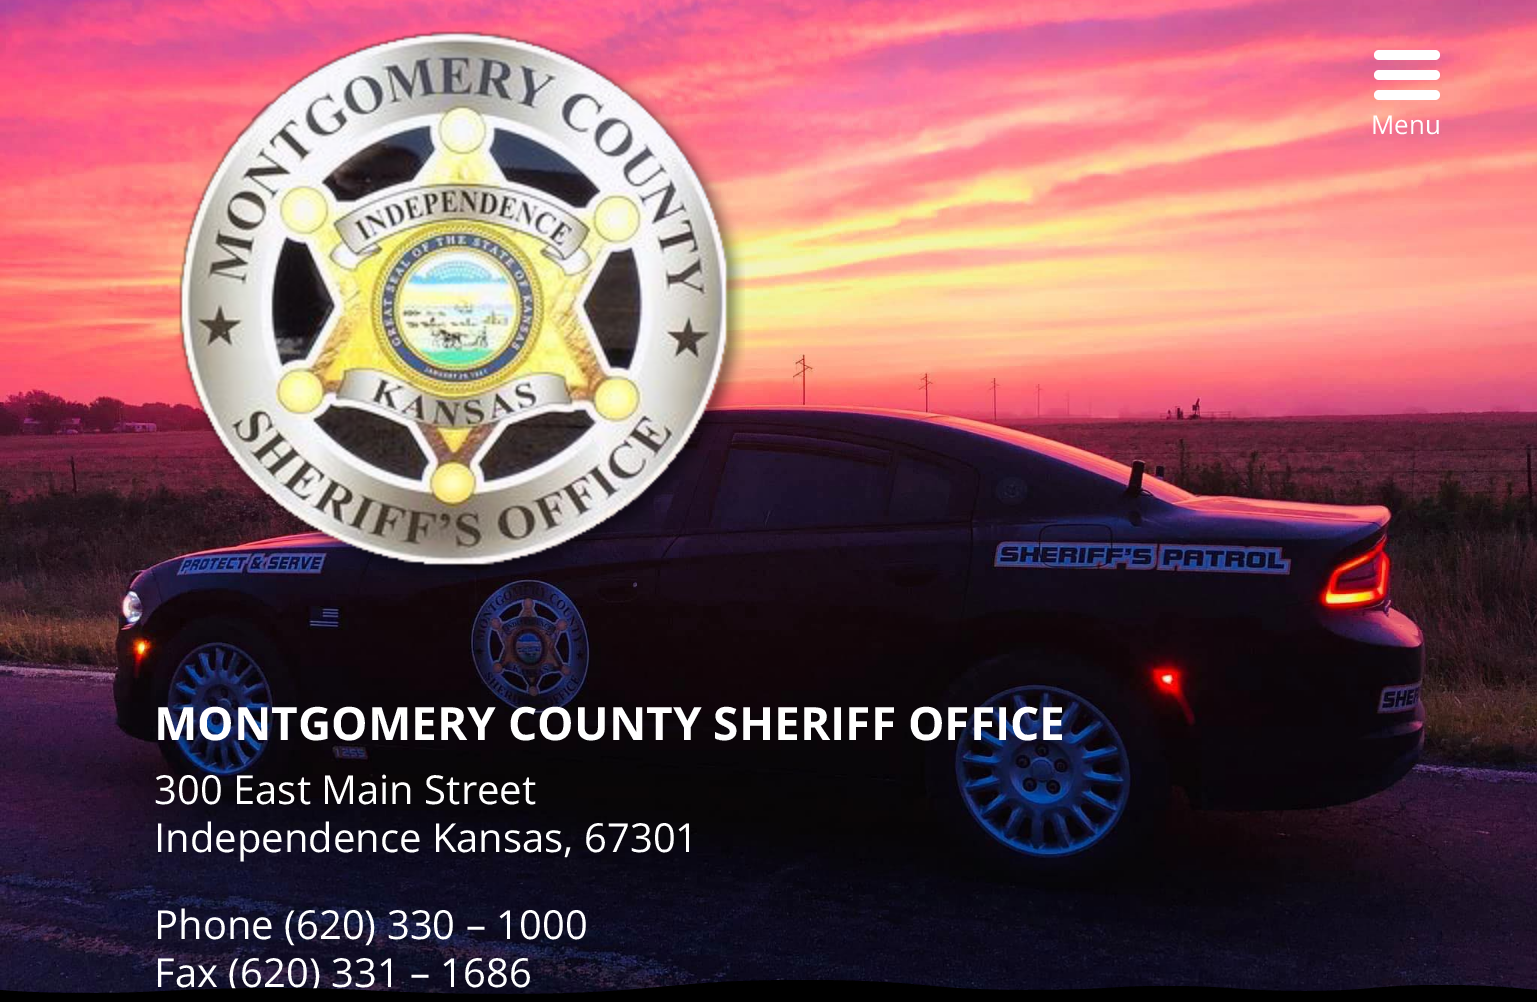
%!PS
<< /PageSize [1537 1002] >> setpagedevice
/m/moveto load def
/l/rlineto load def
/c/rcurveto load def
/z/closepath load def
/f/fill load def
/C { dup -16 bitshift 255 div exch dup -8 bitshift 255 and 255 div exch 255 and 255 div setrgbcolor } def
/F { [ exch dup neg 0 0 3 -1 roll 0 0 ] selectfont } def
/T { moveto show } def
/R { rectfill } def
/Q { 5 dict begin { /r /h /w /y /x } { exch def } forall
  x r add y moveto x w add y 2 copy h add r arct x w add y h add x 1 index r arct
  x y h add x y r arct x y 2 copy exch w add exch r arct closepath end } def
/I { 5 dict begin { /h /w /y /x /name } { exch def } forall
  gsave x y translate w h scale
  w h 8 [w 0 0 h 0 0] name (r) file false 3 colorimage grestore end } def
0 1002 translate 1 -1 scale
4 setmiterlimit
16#FFFFFF C
0 0 1537 1002 R
(1.rgb) 0 0 1537 994 I
1374 70 66 10 5 Q f
1374 50 66 10 5 Q f
1374 90 66 10 5 Q f
/OpenSans-Regular 26 F
(Menu) 1371 134 T
(2.rgb) 179 31 566 547 I
/OpenSans-Bold 46 F
(MONTGOMERY COUNTY SHERIFF OFFICE) 154 740 T
/OpenSans-Regular 40 F
(300 East Main Street) 154 804 T
(Independence Kansas, 67301) 154 852 T
(Phone \(620\) 330 – 1000) 154 939 T
(Fax \(620\) 331 – 1686) 154 987 T
16#000000 C
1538 990 m -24 -2 -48 -5 -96 -5 c -69 0 -68 6 -138 6 c -65 0 -72 -5 -139 -5 c -55 0 -54 4 -139 4 c -107 0 -95 -10 -226 -10 c -134 0 -146 14 -291 14 c -121 0 -142 -6 -231 -6 c -92 0 -120 5 -182 5 c -48 0 -72 -1 -96 -3 c 0 6 l 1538 0 l z f
0 996 1537 6 R
showpage
